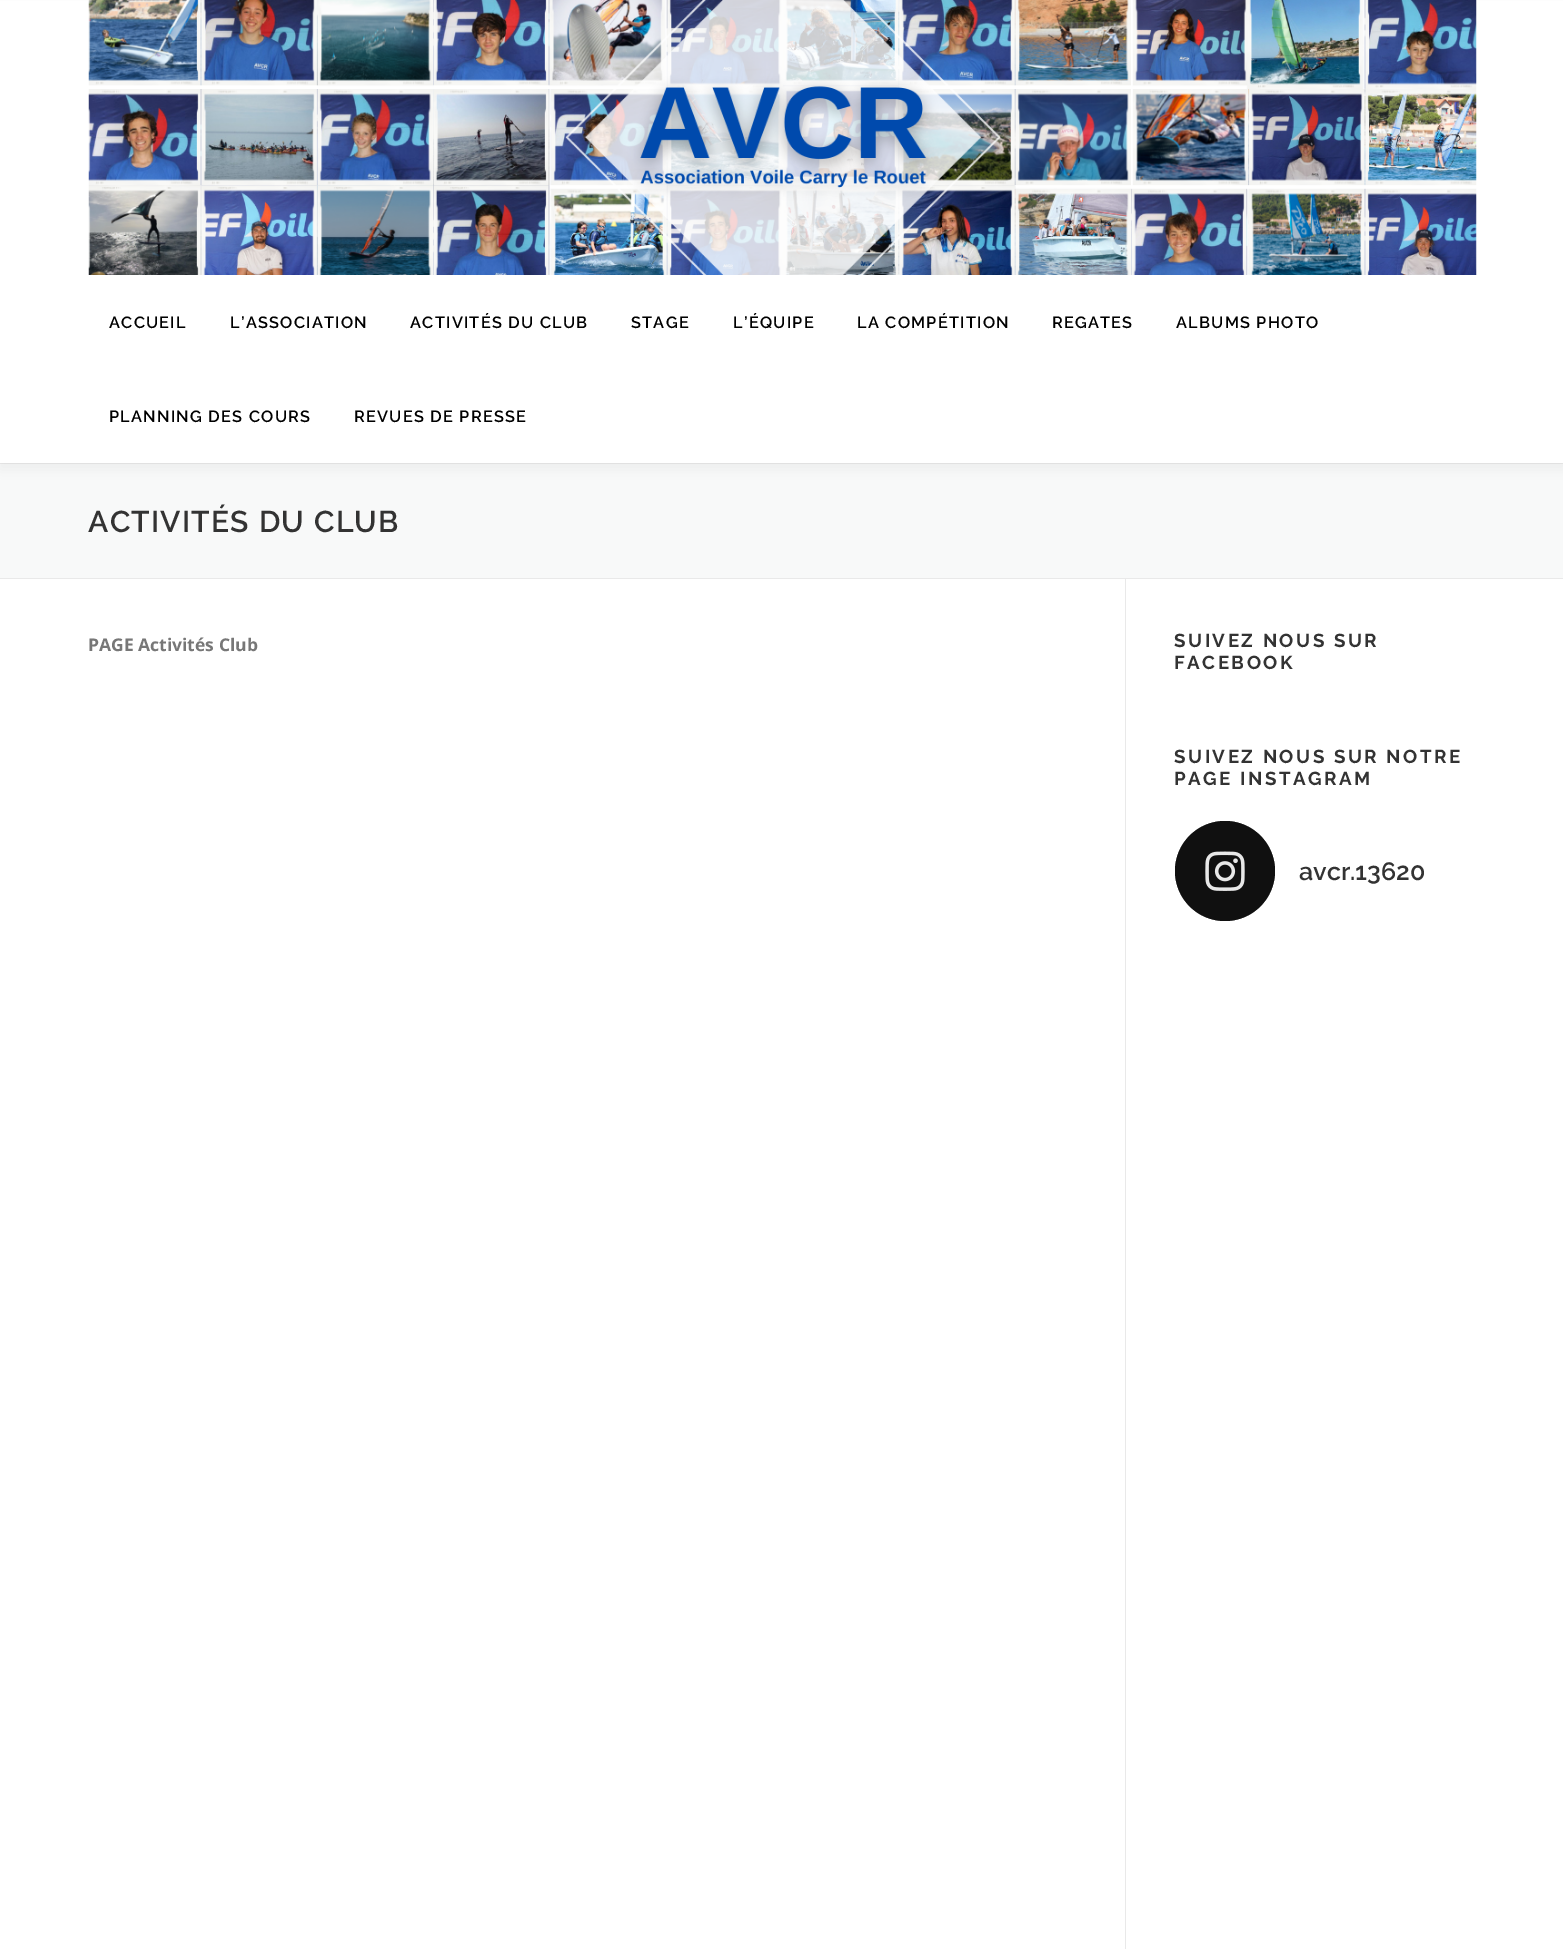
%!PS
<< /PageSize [1563 1949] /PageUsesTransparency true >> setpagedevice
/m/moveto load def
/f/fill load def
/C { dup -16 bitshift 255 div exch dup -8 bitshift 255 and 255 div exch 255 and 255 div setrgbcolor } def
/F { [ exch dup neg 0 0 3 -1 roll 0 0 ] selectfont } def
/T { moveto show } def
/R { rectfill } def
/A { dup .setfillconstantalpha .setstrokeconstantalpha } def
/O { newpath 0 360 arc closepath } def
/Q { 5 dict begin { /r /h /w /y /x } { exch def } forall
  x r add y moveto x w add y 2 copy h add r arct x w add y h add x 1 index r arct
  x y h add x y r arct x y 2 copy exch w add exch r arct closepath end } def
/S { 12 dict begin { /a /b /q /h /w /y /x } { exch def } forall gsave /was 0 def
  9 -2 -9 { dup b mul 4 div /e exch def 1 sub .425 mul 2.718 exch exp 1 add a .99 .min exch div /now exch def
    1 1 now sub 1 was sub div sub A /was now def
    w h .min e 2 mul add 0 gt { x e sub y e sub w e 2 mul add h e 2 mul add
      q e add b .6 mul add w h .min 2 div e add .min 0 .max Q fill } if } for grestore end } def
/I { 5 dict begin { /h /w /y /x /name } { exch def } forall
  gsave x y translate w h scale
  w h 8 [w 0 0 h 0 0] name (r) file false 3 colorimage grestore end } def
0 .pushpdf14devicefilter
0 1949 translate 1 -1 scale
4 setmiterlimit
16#FFFFFF C
0 0 1563 1949 R
16#F8F9F9 C
0 464 1563 114 R
16#E9E9E9 C
0 463 1563 1 R
16#323232 C
0 6 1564 463 0 6 .06 S
16#FFFFFF C
0 1 1563 462 R
(1.rgb) 88 0 1389 275 I
/Raleway-SemiBold 16.25 F
16#000000 C
109 328 m 1.25 0 (ACCUEIL) ashow
230 328 m 1.25 0 (L’ASSOCIATION) ashow
410 328 m 1.25 0 (ACTIVITÉS DU CLUB) ashow
631 328 m 1.25 0 (STAGE) ashow
733 328 m 1.25 0 (L’ÉQUIPE) ashow
857 328 m 1.25 0 (LA COMPÉTITION) ashow
1052 328 m 1.25 0 (REGATES) ashow
1176 328 m 1.25 0 (ALBUMS PHOTO) ashow
109 422 m 1.25 0 (PLANNING DES COURS) ashow
354 422 m 1.25 0 (REVUES DE PRESSE) ashow
16#E9E9E9 C
0 578 1563 1 R
/Raleway-SemiBold 30 F
16#333333 C
88 532 m 1.25 0 (ACTIVITÉS DU CLUB) ashow
/OpenSans-Bold 17.5 F
16#777777 C
(PAGE Activités Club) 88 651 T
16#E9E9E9 C
1125 579 1 1370 R
/Raleway-Bold 18.75 F
16#333333 C
1174 647 m 2.5 0 (SUIVEZ NOUS SUR) ashow
1174 669 m 2.5 0 (FACEBOOK) ashow
1174 763 m 2.5 0 (SUIVEZ NOUS SUR NOTRE) ashow
1174 785 m 2.5 0 (PAGE INSTAGRAM) ashow
1225 871 50 O f
0.68 A
16#000000 C
1225 871 50 O f
1 A
(2.rgb) 1205 851 40 40 I
/Raleway-SemiBold 25 F
16#333333 C
(avcr.13620) 1299 880 T
.poppdf14devicefilter showpage
